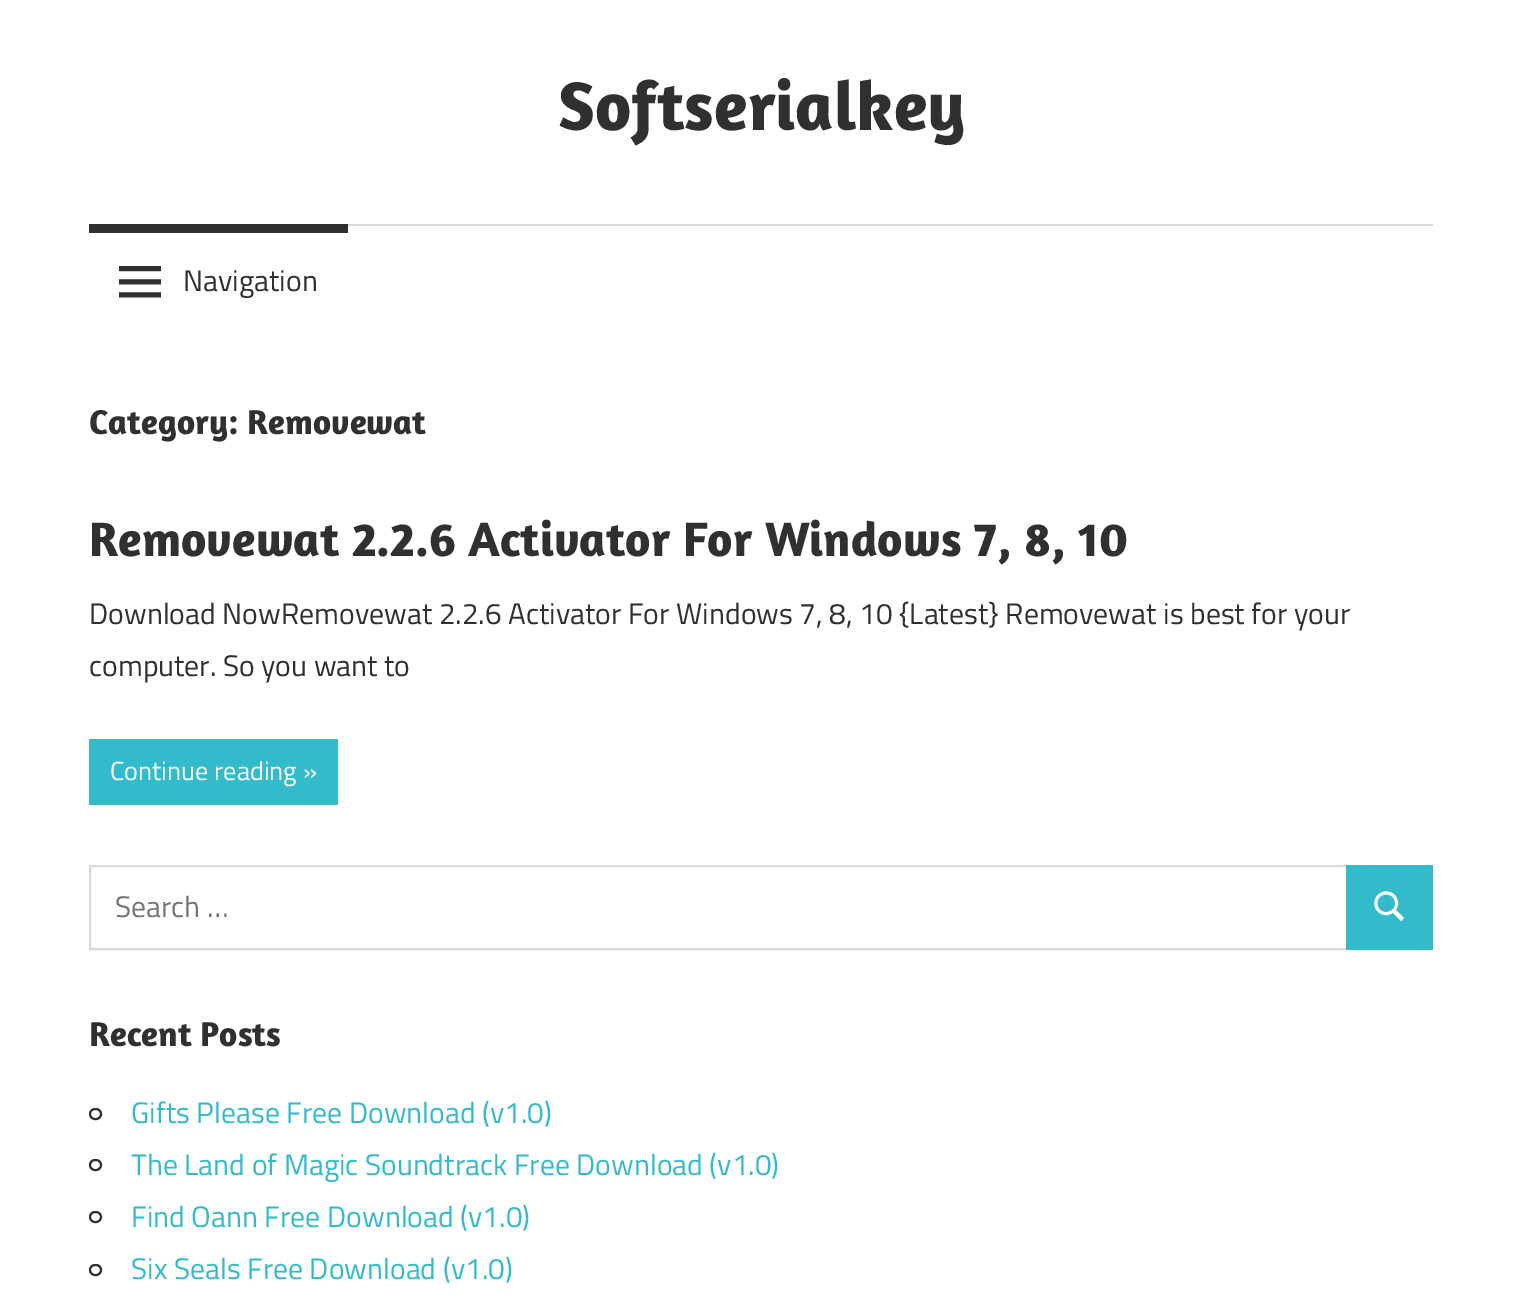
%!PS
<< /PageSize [1522 1302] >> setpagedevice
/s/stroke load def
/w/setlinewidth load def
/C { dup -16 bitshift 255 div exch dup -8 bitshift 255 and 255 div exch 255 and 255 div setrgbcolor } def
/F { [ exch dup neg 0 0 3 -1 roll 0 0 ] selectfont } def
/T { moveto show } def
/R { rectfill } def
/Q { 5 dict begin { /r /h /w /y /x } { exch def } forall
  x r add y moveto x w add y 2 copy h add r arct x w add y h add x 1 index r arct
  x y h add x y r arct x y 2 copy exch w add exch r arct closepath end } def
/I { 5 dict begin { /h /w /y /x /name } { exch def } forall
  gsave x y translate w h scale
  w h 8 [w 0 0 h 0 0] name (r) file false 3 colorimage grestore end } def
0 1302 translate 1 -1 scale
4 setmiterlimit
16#FFFFFF C
0 0 1522 1302 R
/Amaranth-Bold 70 F
16#303030 C
(Softserialkey) 558 130 T
16#D9D9D9 C
348 224 1085 2 R
16#303030 C
89 224 259 9 R
(1.rgb) 119 266 42 32 I
/TitilliumWeb-Regular 29.75 F
(Navigation) 183 291 T
/Amaranth-Bold 35 F
(Category: Removewat) 89 434 T
/Amaranth-Bold 49 F
(Removewat 2.2.6 Activator For Windows 7, 8, 10) 89 556 T
/TitilliumWeb-Regular 29.75 F
(Download NowRemovewat 2.2.6 Activator For Windows 7, 8, 10 {Latest} Removewat is best for your) 89 624 T
(computer. So you want to) 89 676 T
16#33BBCC C
89 739 249 66 R
/TitilliumWeb-Regular 26.25 F
16#FFFFFF C
(Continue reading ») 110 780 T
16#D9D9D9 C
2 w
90 866 1257 83 rectstroke
/TitilliumWeb-Regular 29.75 F
16#757575 C
(Search …) 115 917 T
16#33BBCC C
1346 865 87 85 R
(2.rgb) 1374 891 30 31 I
/Amaranth-Bold 35 F
16#303030 C
(Recent Posts) 89 1046 T
90 1109 11 10 5 Q s
/TitilliumWeb-Regular 29.75 F
16#33BBCC C
(Gifts Please Free Download \(v1.0\)) 131 1123 T
16#303030 C
90 1160 11 10 5 Q s
16#33BBCC C
(The Land of Magic Soundtrack Free Download \(v1.0\)) 131 1175 T
16#303030 C
90 1212 11 10 5 Q s
16#33BBCC C
(Find Oann Free Download \(v1.0\)) 131 1227 T
16#303030 C
90 1265 11 10 5 Q s
16#33BBCC C
(Six Seals Free Download \(v1.0\)) 131 1279 T
showpage
